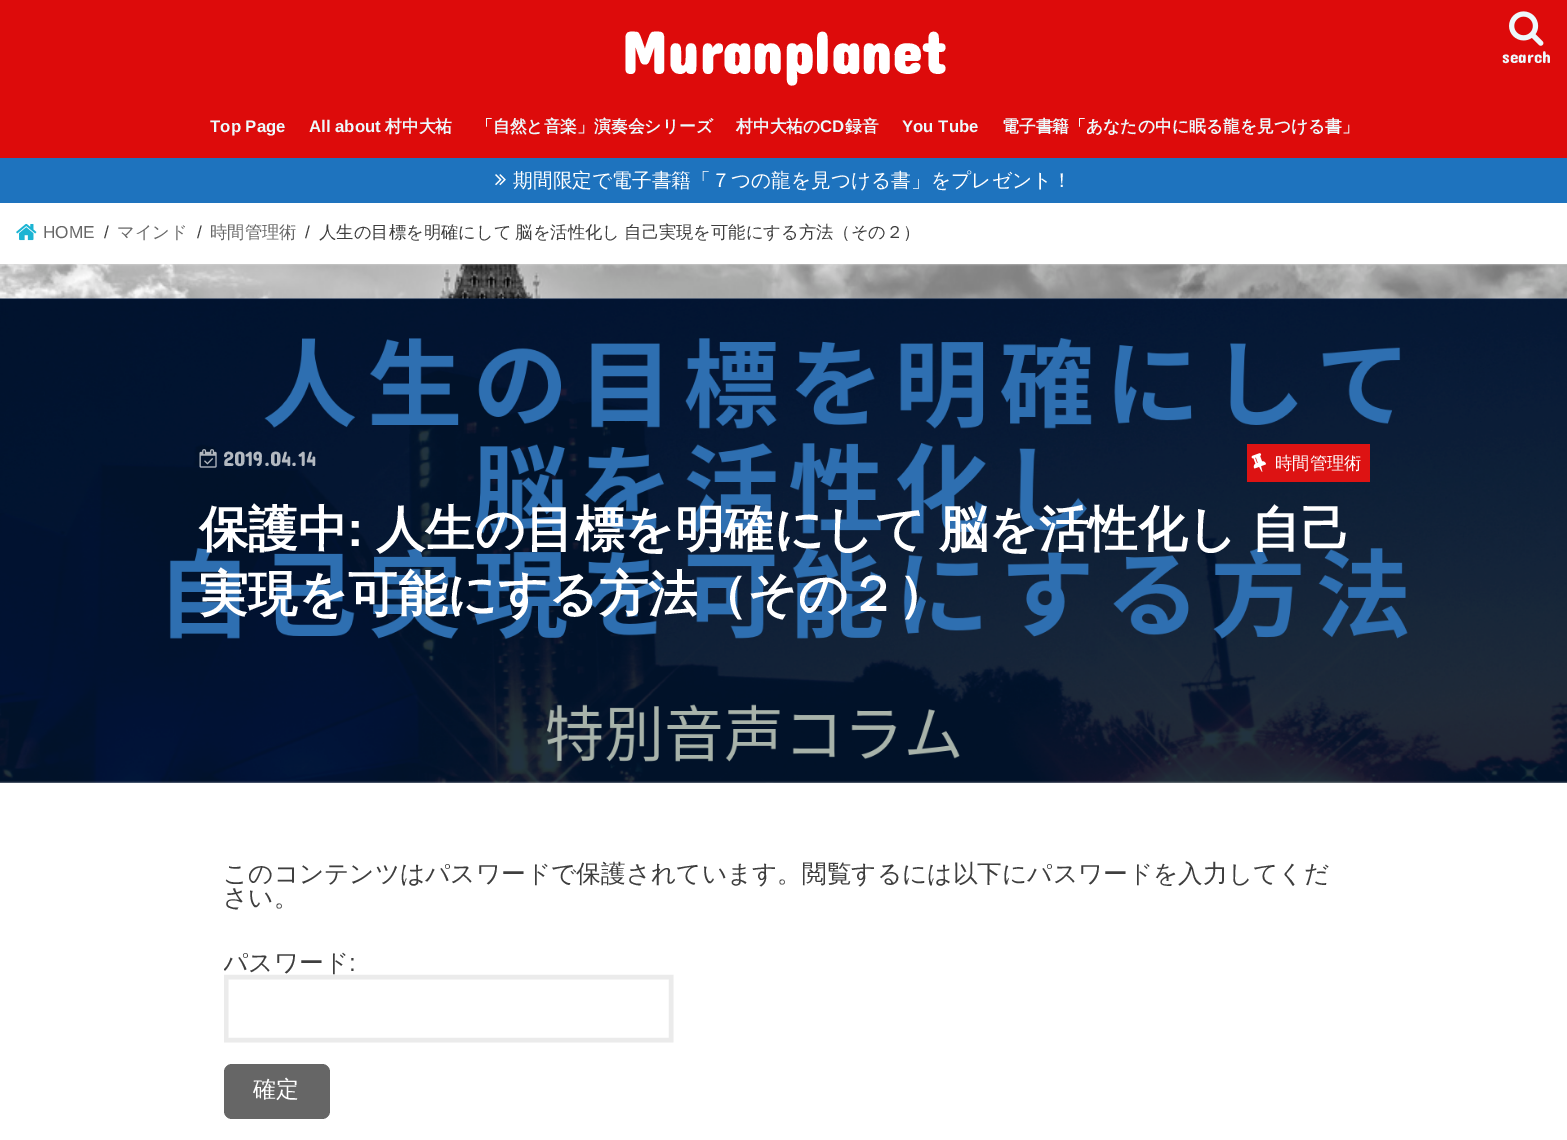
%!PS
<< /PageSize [1567 1140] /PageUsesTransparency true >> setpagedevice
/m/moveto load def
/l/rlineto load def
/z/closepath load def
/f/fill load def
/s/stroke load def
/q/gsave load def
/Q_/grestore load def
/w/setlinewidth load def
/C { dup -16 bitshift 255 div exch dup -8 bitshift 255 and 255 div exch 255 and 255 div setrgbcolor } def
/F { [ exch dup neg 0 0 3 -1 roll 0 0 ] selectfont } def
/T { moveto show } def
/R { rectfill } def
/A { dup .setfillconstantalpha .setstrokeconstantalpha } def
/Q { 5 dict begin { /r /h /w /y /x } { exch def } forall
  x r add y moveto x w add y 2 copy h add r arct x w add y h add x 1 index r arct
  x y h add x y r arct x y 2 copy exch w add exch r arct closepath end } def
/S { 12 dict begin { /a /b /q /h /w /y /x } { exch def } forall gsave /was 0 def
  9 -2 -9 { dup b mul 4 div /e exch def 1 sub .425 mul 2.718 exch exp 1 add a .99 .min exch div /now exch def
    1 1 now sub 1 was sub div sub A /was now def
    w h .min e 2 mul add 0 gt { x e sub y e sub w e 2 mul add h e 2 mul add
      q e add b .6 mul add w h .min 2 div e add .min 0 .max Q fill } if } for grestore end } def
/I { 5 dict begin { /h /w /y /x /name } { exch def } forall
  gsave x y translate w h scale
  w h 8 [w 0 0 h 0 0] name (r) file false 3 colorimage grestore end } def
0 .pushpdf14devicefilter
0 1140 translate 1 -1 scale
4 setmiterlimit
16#FFFFFF C
0 0 1567 1140 R
(1.rgb) 0 264 1567 35 I
16#DD0B0B C
0 0 1567 158 R
/ConcertOne-Bold 59.5 F
16#FFFFFF C
(Muranplanet) 621 74 T
(2.rgb) 1509 11 35 35 I
/ConcertOne-Regular 17.3 F
16#EDF9FC C
(search) 1502 63 T
/LiberationSans-Bold 16.8 F
(Top Page) 210 132 T
(All about) 309 132 T
/WenQuanYiZenHei-Bold 16.8 F
(村中大祐) 385 132 T
(「自然と音楽」演奏会シリーズ) 476 132 T
(村中大祐の) 736 132 T
/LiberationSans-Bold 16.8 F
(CD) 820 132 T
/WenQuanYiZenHei-Bold 16.8 F
(録音) 845 132 T
/LiberationSans-Bold 16.8 F
(You Tube) 902 132 T
/WenQuanYiZenHei-Bold 16.8 F
(電子書籍「あなたの中に眠る龍を見つける書」) 1002 132 T
16#DDDDDD C
0 203 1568 61 0 1 1 S
16#1E73BE C
0 158 1567 45 R
(3.rgb) 495 174 11 12 I
/WenQuanYiZenHei-Medium 19.75 F
16#FFFFFF C
(期間限定で電子書籍「７つの龍を見つける書」をプレゼント！) 513 187 T
0 203 1567 61 R
(4.rgb) 16 223 21 18 I
/LiberationSans-Regular 17.3 F
16#666666 C
(HOME) 43 238 T
16#3E3E3E C
(/) 104 238 T
/WenQuanYiZenHei-Medium 17.3 F
16#666666 C
(マインド) 117 238 T
/LiberationSans-Regular 17.3 F
16#3E3E3E C
(/) 197 238 T
/WenQuanYiZenHei-Medium 17.3 F
16#666666 C
(時間管理術) 210 238 T
/LiberationSans-Regular 17.3 F
16#3E3E3E C
(/) 305 238 T
/WenQuanYiZenHei-Medium 17.3 F
319 238 m -1 0 32 (人生の目標を明確にして 脳を活性化し 自己実現を可能にする方法（その２）) widthshow
(5.rgb) 0 298 1567 485 I
(6.rgb) 199 449 18 19 I
/ConcertOne-Regular 21 F
16#B3B9C1 C
(2019.04.14) 223 466 T
16#DD1313 C
1247 444 123 38 R
(7.rgb) 1251 453 15 19 I
/WenQuanYiZenHei-Medium 17.3 F
16#FFFFFF C
(時間管理術) 1275 469 T
/WenQuanYiZenHei-Bold 49.4 F
(保護中) 199 546 T
/LiberationSans-Bold 49.4 F
(:) 347 546 T
/WenQuanYiZenHei-Bold 49.4 F
376 546 m -1 0 32 (人生の目標を明確にして 脳を活性化し 自己) widthshow
(実現を可能にする方法（その２）) 199 611 T
16#DDDDDD C
0 783 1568 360 0 1 1 S
16#FFFFFF C
0 783 1567 357 R
/WenQuanYiZenHei-Medium 24.7 F
16#3E3E3E C
(このコンテンツはパスワードで保護されています。閲覧するには以下にパスワードを入力してくだ) 223 882 T
(さい。) 223 906 T
q
224 821 1122 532 rectclip
16#EBEBEB C
4.5 w
226 977 m 445 0 l 0 63 l -445 0 l z s
16#3E3E3E C
(パスワード) 223 971 T
Q_
/LiberationSans-Regular 24.7 F
(:) 349 971 T
16#666666 C
224 1064 106 55 8 Q f
/WenQuanYiZenHei-Medium 23 F
16#FFFFFF C
(確定) 253 1097 T
.poppdf14devicefilter showpage
